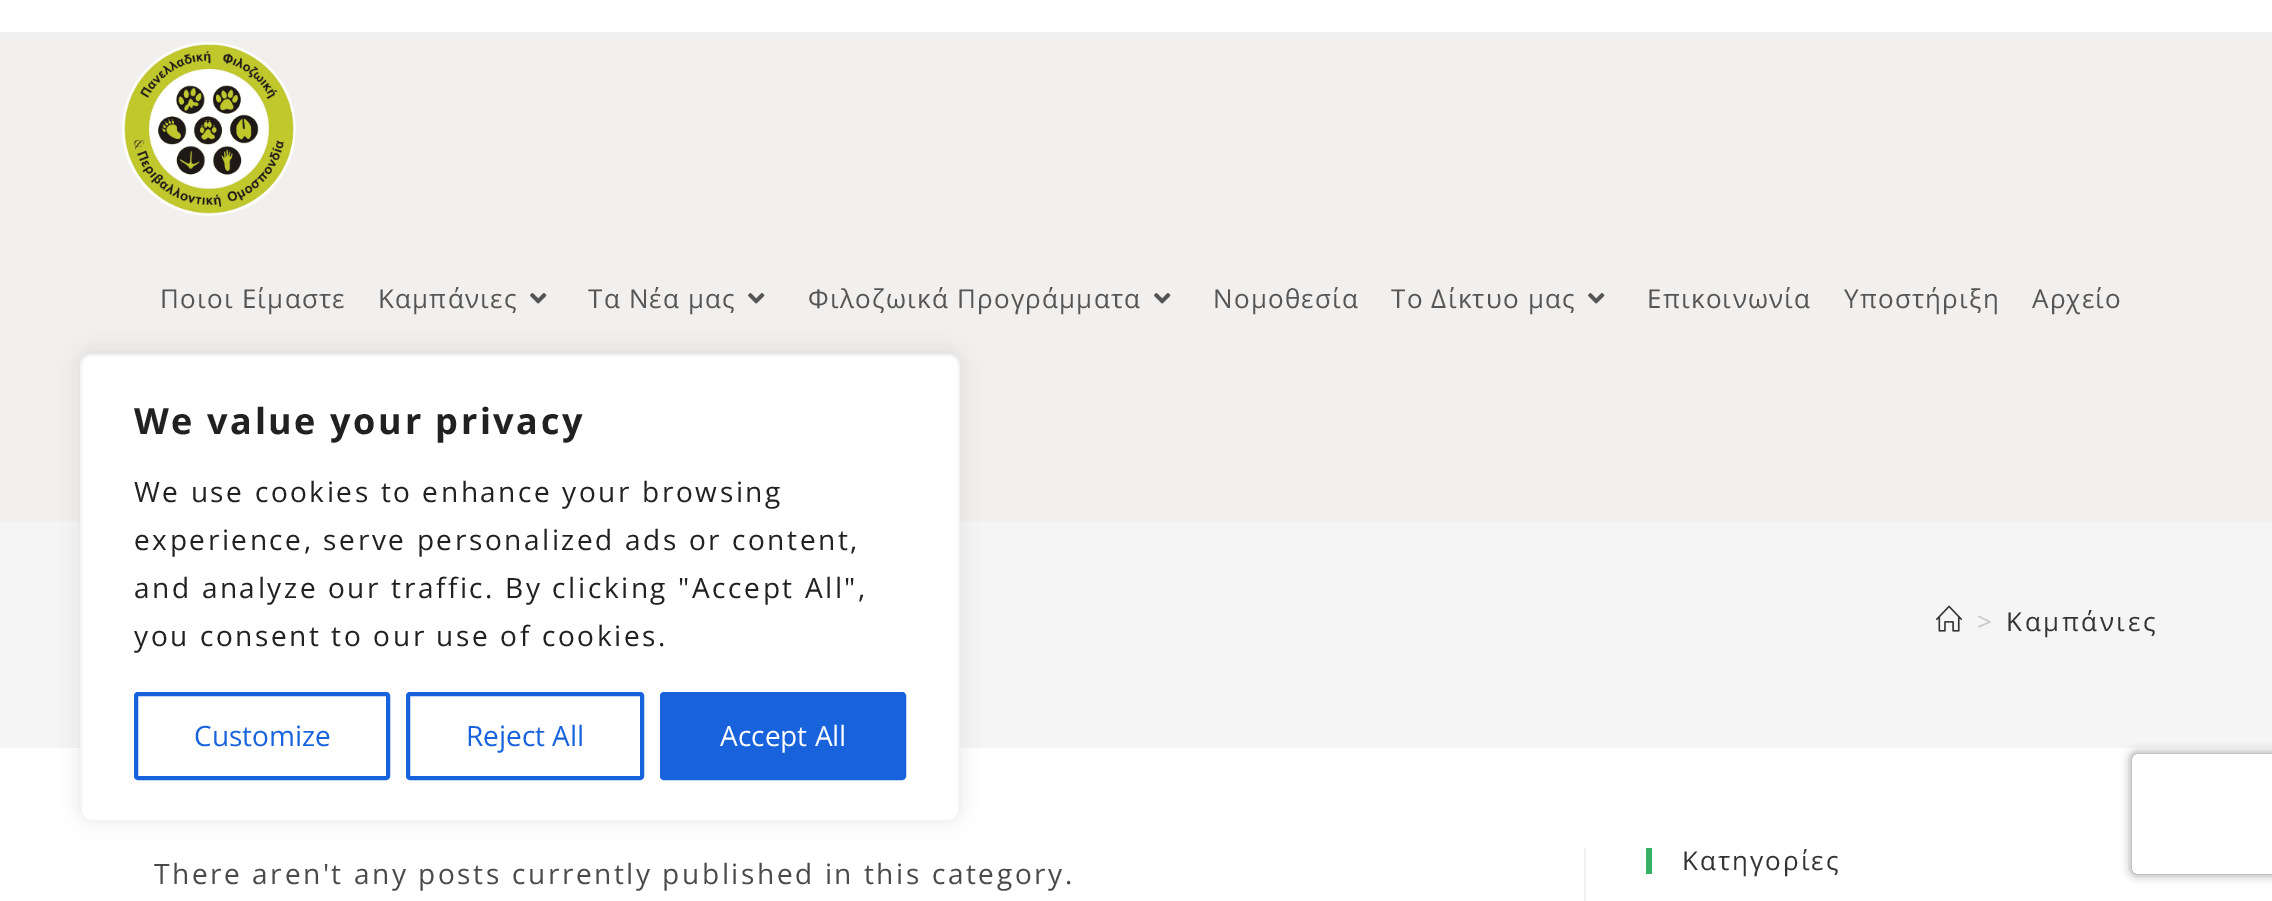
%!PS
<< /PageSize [2272 901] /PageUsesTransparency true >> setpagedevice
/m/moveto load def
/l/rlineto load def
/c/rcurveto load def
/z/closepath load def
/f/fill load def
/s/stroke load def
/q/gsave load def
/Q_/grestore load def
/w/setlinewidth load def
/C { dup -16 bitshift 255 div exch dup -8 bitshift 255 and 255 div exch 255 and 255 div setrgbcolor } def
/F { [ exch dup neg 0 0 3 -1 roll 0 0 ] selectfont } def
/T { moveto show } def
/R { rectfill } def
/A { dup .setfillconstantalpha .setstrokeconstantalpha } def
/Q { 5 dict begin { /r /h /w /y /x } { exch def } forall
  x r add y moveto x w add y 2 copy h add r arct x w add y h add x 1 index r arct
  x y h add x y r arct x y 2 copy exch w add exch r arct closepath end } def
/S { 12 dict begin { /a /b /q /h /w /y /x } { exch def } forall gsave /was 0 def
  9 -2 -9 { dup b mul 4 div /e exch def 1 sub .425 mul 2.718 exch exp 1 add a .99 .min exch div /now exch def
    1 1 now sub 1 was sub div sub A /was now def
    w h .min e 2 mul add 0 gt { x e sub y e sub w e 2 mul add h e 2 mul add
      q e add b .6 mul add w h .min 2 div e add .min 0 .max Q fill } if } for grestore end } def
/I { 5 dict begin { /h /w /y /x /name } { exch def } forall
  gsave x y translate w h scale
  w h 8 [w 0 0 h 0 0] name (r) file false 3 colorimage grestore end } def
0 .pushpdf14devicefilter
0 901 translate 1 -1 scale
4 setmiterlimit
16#FFFFFF C
0 0 2272 901 R
16#F1F1F1 C
0 32 2272 2 R
16#F2F0EE C
0 34 2272 486 R
16#F1F1F1 C
0 520 2272 2 R
(1.rgb) 122 42 174 174 I
/OpenSans-Regular 26 F
16#555555 C
160 308 m 1.2 0 (Ποιοι Είμαστε) ashow
378 308 m 1.2 0 (Καμπάνιες) ashow
(2.rgb) 530 293 17 11 I
588 308 m 1.2 0 (Τα Νέα μας) ashow
(2.rgb) 748 293 17 11 I
808 308 m 1.2 0 (Φιλοζωικά Προγράμματα) ashow
(2.rgb) 1154 293 17 11 I
1213 308 m 1.2 0 (Νομοθεσία) ashow
1391 308 m 1.2 0 (Το Δίκτυο μας) ashow
(2.rgb) 1588 293 17 11 I
1647 308 m 1.2 0 (Επικοινωνία) ashow
1844 308 m 1.2 0 (Υποστήριξη) ashow
2032 308 m 1.2 0 (Αρχείο) ashow
16#F5F5F5 C
0 522 2272 226 R
(3.rgb) 1936 605 26 27 I
16#C6C6C6 C
1977 631 m 2.6 0 (>) ashow
16#333333 C
2006 631 m 2.6 0 (Καμπάνιες) ashow
16#F1F1F1 C
1584 848 2 53 R
/OpenSans-Regular 28 F
16#4A4A4A C
154 884 m 2.6 0 (There aren't any posts currently published in this category.) ashow
16#37B065 C
1646 848 6 26 R
/OpenSans-Regular 26 F
16#333333 C
1682 870 m 2 0 (Kατηγορίες) ashow
16#ACABAB C
80 352 880 468 12 10 .3 S
16#FFFFFF C
81 355 878 466 11 Q q f Q_
16#F4F4F4 C
2 w
s
/OpenSans-Bold 36 F
16#212121 C
134 434 m 2.6 0 (We value your privacy) ashow
/OpenSans-Regular 28 F
134 502 m 2.6 0 (We use cookies to enhance your browsing) ashow
134 550 m 2.6 0 (experience, serve personalized ads or content,) ashow
134 598 m 2.6 0 (and analyze our traffic. By clicking "Accept All",) ashow
134 646 m 2.6 0 (you consent to our use of cookies.) ashow
16#1863DC C
4 w
136 694 252 84 2 Q s
(Customize) 194 746 T
408 694 234 84 2 Q s
(Reject All) 466 746 T
662 694 242 84 2 Q q f Q_
s
16#FFFFFF C
(Accept All) 720 746 T
q
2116 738 m 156 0 l 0 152 l -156 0 l z 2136 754 m 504 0 l 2 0 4 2 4 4 c 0 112 l 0 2 -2 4 -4 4 c -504 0 l -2 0 -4 -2 -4 -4 c 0 -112 l 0 -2 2 -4 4 -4 c z eoclip newpath
16#808080 C
2132 754 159 120 4 5 1 S
Q_
.poppdf14devicefilter showpage
